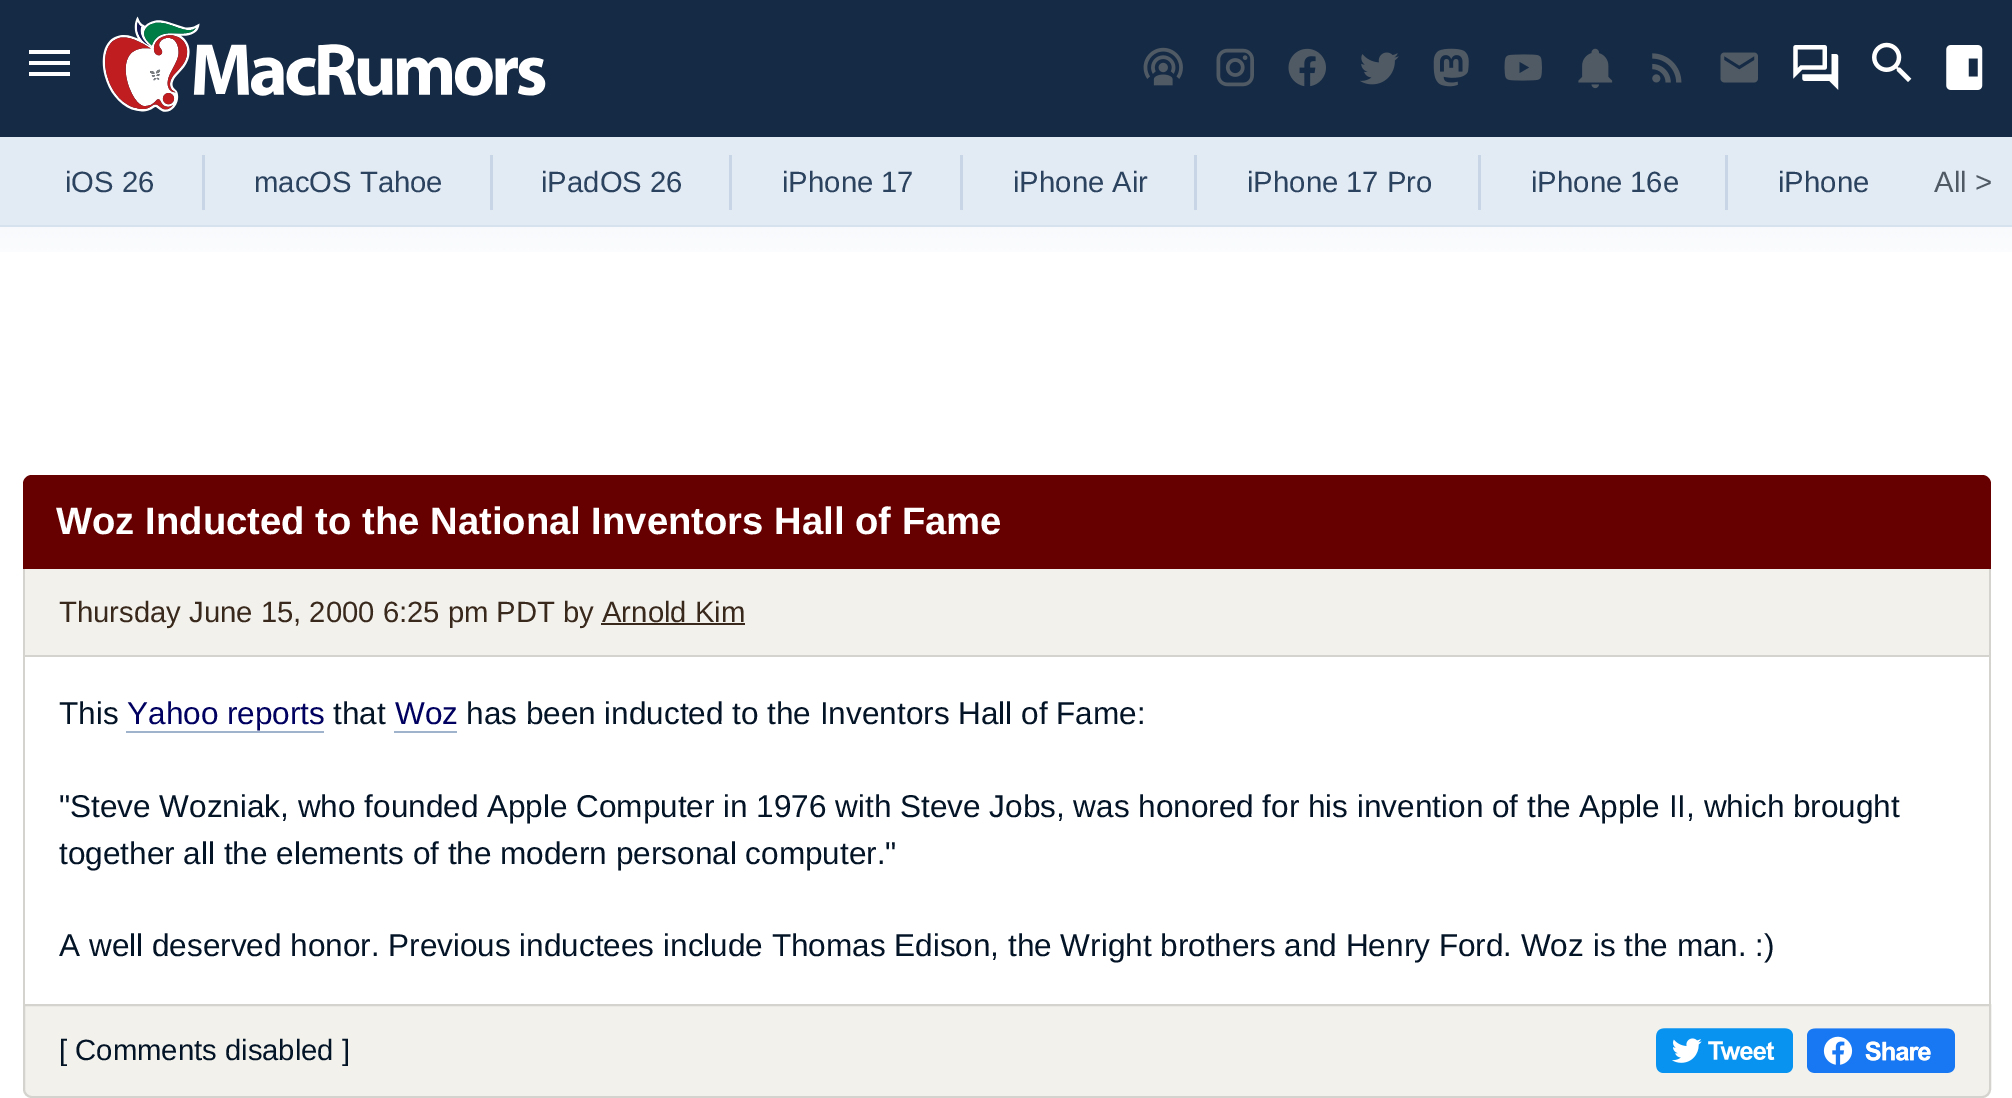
%!PS
<< /PageSize [2012 1098] >> setpagedevice
/m/moveto load def
/l/rlineto load def
/c/rcurveto load def
/z/closepath load def
/f/fill load def
/s/stroke load def
/q/gsave load def
/Q_/grestore load def
/w/setlinewidth load def
/C { dup -16 bitshift 255 div exch dup -8 bitshift 255 and 255 div exch 255 and 255 div setrgbcolor } def
/F { [ exch dup neg 0 0 3 -1 roll 0 0 ] selectfont } def
/T { moveto show } def
/R { rectfill } def
/I { 5 dict begin { /h /w /y /x /name } { exch def } forall
  gsave x y translate w h scale
  w h 8 [w 0 0 h 0 0] name (r) file false 3 colorimage grestore end } def
0 1098 translate 1 -1 scale
4 setmiterlimit
16#FFFFFF C
0 0 2012 1098 R
(1.rgb) 0 227 2012 25 I
16#152A44 C
0 0 2012 137 R
16#FFFFFF C
29 50 m 41 0 l 0 4 l -41 0 l 0 -4 l 29 61 m 41 0 l 0 4 l -41 0 l 0 -4 l 29 72 m 41 0 l 0 4 l -41 0 l z f
(2.rgb) 102 16 444 96 I
(3.rgb) 1143 47 40 39 I
(4.rgb) 1216 48 38 39 I
(5.rgb) 1288 48 38 39 I
(6.rgb) 1360 52 39 33 I
(7.rgb) 1433 48 36 39 I
(8.rgb) 1504 54 38 27 I
(9.rgb) 1578 48 35 41 I
(10.rgb) 1652 53 30 30 I
(11.rgb) 1720 52 38 31 I
(12.rgb) 1793 45 46 45 I
(13.rgb) 1872 42 40 40 I
(14.rgb) 1946 45 37 45 I
16#E2EAF3 C
0 137 2012 88 R
16#D7E2EF C
0 225 2012 2 R
16#C8D5E6 C
202 155 3 55 R
/LiberationSans-Regular 29.25 F
16#2C435F C
(iOS 26) 65 192 T
16#C8D5E6 C
490 155 3 55 R
16#2C435F C
(macOS Tahoe) 254 192 T
16#C8D5E6 C
729 155 3 55 R
16#2C435F C
(iPadOS 26) 541 192 T
16#C8D5E6 C
960 155 3 55 R
16#2C435F C
(iPhone 17) 782 192 T
16#C8D5E6 C
1194 155 3 55 R
16#2C435F C
(iPhone Air) 1013 192 T
16#C8D5E6 C
1478 155 3 55 R
16#2C435F C
(iPhone 17 Pro) 1247 192 T
16#C8D5E6 C
1725 155 3 55 R
16#2C435F C
(iPhone 16e) 1531 192 T
(iPhone) 1778 192 T
16#4F5A65 C
(All >) 1934 192 T
16#660000 C
32 475 m 1950 0 l 5 0 9 4 9 9 c 0 85 l -1968 0 l 0 -85 l 0 -5 4 -9 9 -9 c z f
/LiberationSans-Bold 38.25 F
16#FFFFFF C
(Woz Inducted to the National Inventors Hall of Fame) 56 534 T
16#F2F1EC C
25 569 1964 86 R
16#D5D3CD C
1989 569 2 86 R
23 569 2 86 R
/LiberationSans-Regular 29.25 F
16#39291C C
(Thursday June 15, 2000 6:25 pm PDT by Arnold Kim) 59 622 T
601 623 144 2 R
16#D5D3CD C
23 655 1968 2 R
1989 655 2 349 R
23 655 2 349 R
/LiberationSans-Regular 31.5 F
16#041427 C
(This) 59 724 T
16#000060 C
(Yahoo reports) 127 724 T
16#A0B3CD C
126 731 198 2 R
16#041427 C
(that) 333 724 T
16#000060 C
(Woz) 395 724 T
16#A0B3CD C
394 731 63 2 R
16#041427 C
(has been inducted to the Inventors Hall of Fame:) 466 724 T
("Steve Wozniak, who founded Apple Computer in 1976 with Steve Jobs, was honored for his invention of the Apple II, which brought) 59 817 T
(together all the elements of the modern personal computer.") 59 864 T
(A well deserved honor. Previous inductees include Thomas Edison, the Wright brothers and Henry Ford. Woz is the man. :\)) 59 956 T
16#F2F1EC C
24 1005 m 1966 0 l 0 84 l 0 4.5 -3.5 8 -8 8 c -1950 0 l -4.5 0 -8 -3.5 -8 -8 c z q f Q_
16#D5D3CD C
2 w
s
/LiberationSans-Regular 29.25 F
16#041427 C
([ Comments disabled ]) 59 1060 T
(15.rgb) 1656 1028 137 45 I
(16.rgb) 1807 1028 148 45 I
showpage
